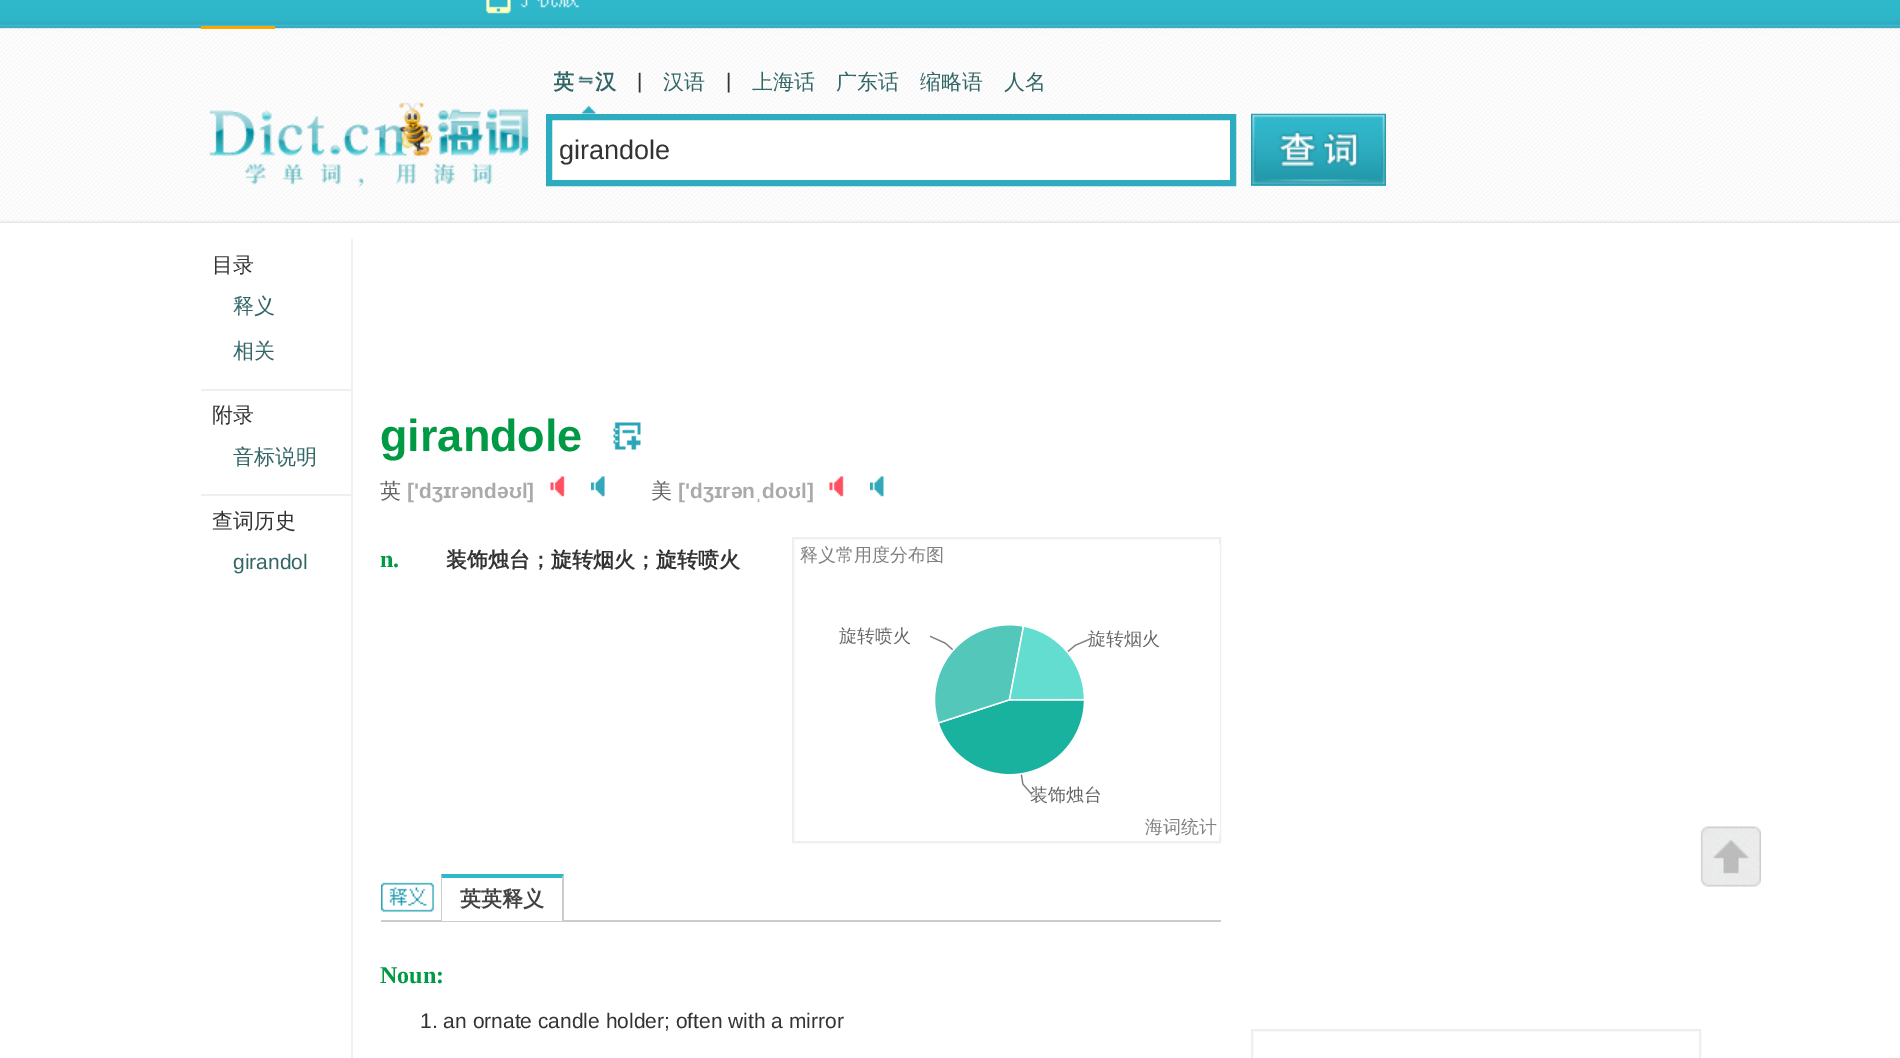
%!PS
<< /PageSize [1900 1058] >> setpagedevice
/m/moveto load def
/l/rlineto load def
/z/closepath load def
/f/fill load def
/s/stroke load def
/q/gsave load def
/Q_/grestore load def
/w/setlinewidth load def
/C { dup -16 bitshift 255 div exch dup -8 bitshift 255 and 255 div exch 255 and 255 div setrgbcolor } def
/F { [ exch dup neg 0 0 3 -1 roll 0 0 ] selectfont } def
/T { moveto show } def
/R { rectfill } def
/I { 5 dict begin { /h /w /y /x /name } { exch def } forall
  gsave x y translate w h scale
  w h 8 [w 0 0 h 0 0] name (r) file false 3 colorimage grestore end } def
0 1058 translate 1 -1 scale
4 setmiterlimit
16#FFFFFF C
0 0 1900 1058 R
(1.rgb) 0 0 1900 223 I
(2.rgb) 486 0 94 14 I
16#FFA303 C
201 26 74 3 R
(3.rgb) 209 102 320 86 I
(4.rgb) 581 106 15 8 I
(5.rgb) 578 76 15 9 I
q
554 63 63 38 rectclip
/WenQuanYiZenHei-Bold 21 F
16#336666 C
(英　汉) 553 89 T
Q_
/LiberationSans-Regular 21 F
16#333333 C
(|) 637 88 T
/WenQuanYiZenHei-Medium 21 F
16#336666 C
(汉语) 663 89 T
/LiberationSans-Regular 21 F
16#333333 C
(|) 726 88 T
/WenQuanYiZenHei-Medium 21 F
16#336666 C
(上海话) 752 89 T
(广东话) 836 89 T
(缩略语) 920 89 T
(人名) 1004 89 T
16#FFFFFF C
549 117 m 684 0 l 0 66 l -684 0 l z q f Q_
16#2DACBF C
6 w
s
/LiberationSans-Regular 27 F
16#333333 C
(girandole) 559 159 T
16#2FB8CB C
1251 185 135 1 R
(6.rgb) 1251 113 135 73 I
/WenQuanYiZenHei-Medium 21 F
16#333333 C
(目录) 212 272 T
16#336666 C
(释义) 233 313 T
(相关) 233 358 T
16#EFEFEF C
201 389 150 2 R
16#333333 C
(附录) 212 422 T
16#336666 C
(音标说明) 233 464 T
16#EFEFEF C
201 494 150 2 R
16#333333 C
(查词历史) 212 528 T
/LiberationSans-Regular 21 F
16#336666 C
(girandol) 233 569 T
16#EFEFEF C
351 239 2 819 R
/LiberationSans-Bold 45 F
16#009944 C
(girandole) 380 451 T
(7.rgb) 613 422 28 28 I
/WenQuanYiZenHei-Medium 21 F
16#666666 C
(英) 380 498 T
/LiberationSans-Bold 21 F
16#AAAAAA C
(['dʒɪrəndəʊl]) 407 498 T
(8.rgb) 550 476 15 21 I
(9.rgb) 591 476 14 21 I
/WenQuanYiZenHei-Medium 21 F
16#666666 C
(美) 651 498 T
/LiberationSans-Bold 21 F
16#AAAAAA C
(['dʒɪrənˌdoʊl]) 678 498 T
(10.rgb) 829 476 15 21 I
(11.rgb) 870 476 14 21 I
/LiberationSerif-Bold 24 F
16#009944 C
(n.) 380 567 T
/WenQuanYiZenHei-Bold 21 F
16#333333 C
(装饰烛台；旋转烟火；旋转喷火) 446 567 T
16#EFEFEF C
2 w
793 538 427 304 rectstroke
(12.rgb) 929 636 1 1 I
(13.rgb) 930 544 290 290 I
/WenQuanYiZenHei-Medium 18 F
16#808080 C
(释义常用度分布图) 800 561 T
16#666666 C
(旋转喷火) 839 642 T
(旋转烟火) 1088 645 T
(装饰烛台) 1030 801 T
16#808080 C
(海词统计) 1145 833 T
(14.rgb) 381 882 54 30 I
16#CCCCCC C
381 920 840 2 R
16#FFFFFF C
441 920 123 1 R
16#2FB8CB C
441 874 m 123 0 l -2 4 l -120 0 l z f
16#CCCCCC C
564 874 m 0 47 l -2 0 l 0 -43 l z f
441 921 m 0 -47 l 1 4 l 0 43 l z f
/WenQuanYiZenHei-Bold 21 F
16#444444 C
(英英释义) 460 906 T
/LiberationSerif-Bold 24 F
16#009944 C
(Noun:) 380 983 T
/LiberationSans-Regular 21 F
16#333333 C
(1. an ornate candle holder; often with a mirror) 420 1028 T
16#EEEEEE C
1252 1030 448 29 rectstroke
(15.rgb) 1700 826 61 61 I
showpage
